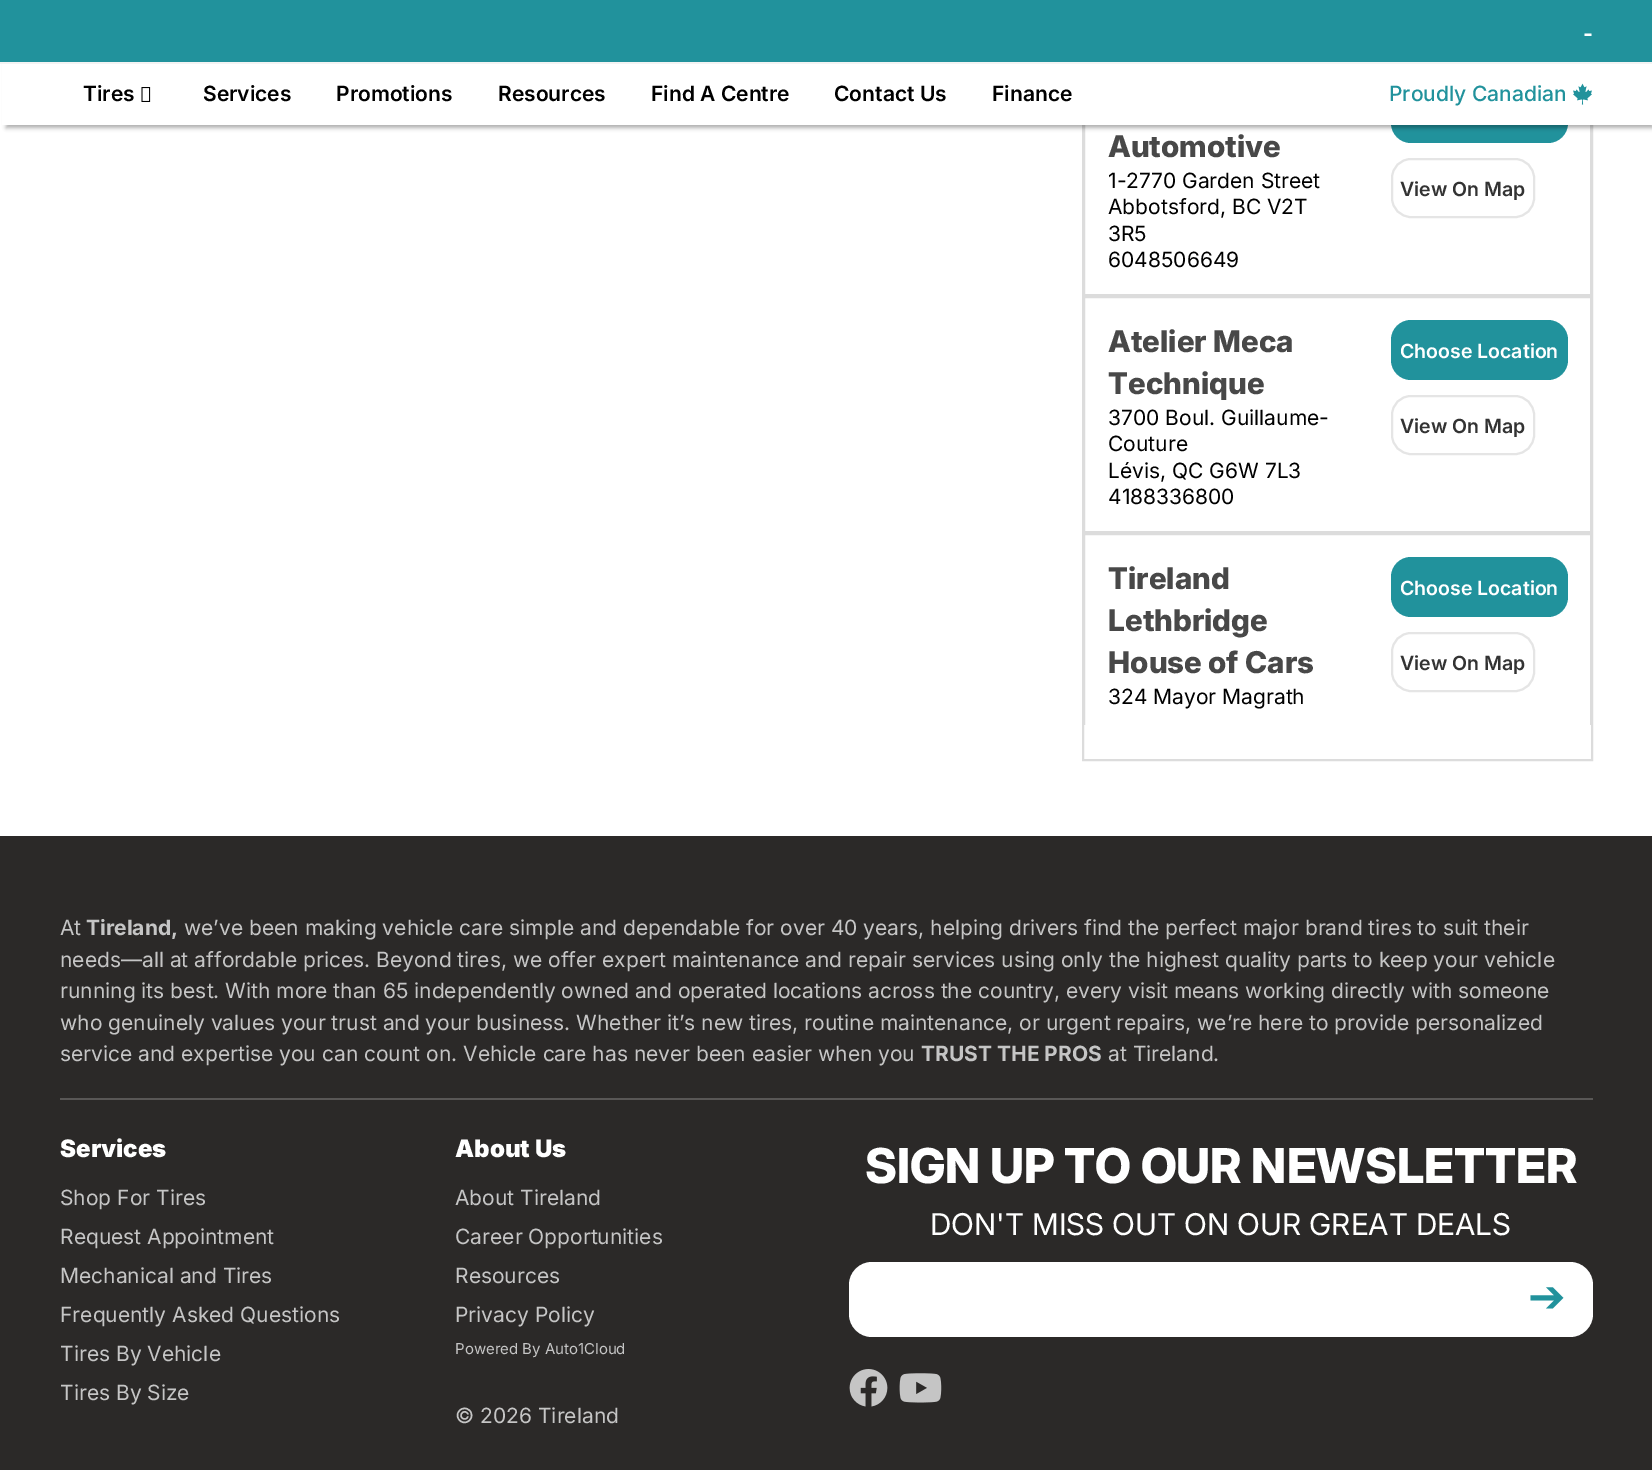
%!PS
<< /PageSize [1652 1470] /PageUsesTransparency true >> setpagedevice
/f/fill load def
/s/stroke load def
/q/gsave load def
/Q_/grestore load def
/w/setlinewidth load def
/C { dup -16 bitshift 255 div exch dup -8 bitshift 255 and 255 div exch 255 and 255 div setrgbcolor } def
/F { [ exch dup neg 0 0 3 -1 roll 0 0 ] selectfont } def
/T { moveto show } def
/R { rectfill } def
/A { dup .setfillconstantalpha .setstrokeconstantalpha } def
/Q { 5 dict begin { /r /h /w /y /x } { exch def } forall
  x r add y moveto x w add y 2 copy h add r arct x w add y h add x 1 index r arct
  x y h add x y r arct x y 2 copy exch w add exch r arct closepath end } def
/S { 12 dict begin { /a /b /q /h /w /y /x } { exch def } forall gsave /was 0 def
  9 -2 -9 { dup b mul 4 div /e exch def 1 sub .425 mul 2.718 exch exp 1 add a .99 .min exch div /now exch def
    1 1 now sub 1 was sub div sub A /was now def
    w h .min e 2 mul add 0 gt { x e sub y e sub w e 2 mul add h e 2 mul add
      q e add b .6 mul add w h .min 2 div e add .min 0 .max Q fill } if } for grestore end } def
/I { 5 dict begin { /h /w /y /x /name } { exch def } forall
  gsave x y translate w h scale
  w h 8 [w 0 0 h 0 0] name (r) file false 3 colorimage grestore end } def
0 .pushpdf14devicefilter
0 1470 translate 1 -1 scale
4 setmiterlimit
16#FFFFFF C
0 0 1652 1470 R
16#DCDCDC C
2 w
1083 -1 509 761 rectstroke
1084 60 507 235 rectstroke
16#21929C C
1391 83 177 60 20 Q f
16#000000 C
6 9 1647 119 0 2 .31 S
16#FFFFFF C
2 64 1650 61 R
16#21929C C
0 0 1652 62 R
/Inter-Bold 21 F
16#FFFFFF C
(-) 1583 41 T
16#F3F3F3 C
0 62 1652 2 R
/Inter-SemiBold 21 F
16#000000 C
(Tires) 83 101 T
(1.rgb) 141 87 10 15 I
(Services) 203 101 T
(Promotions) 336 101 T
(Resources) 498 101 T
(Find A Centre) 651 101 T
(Contact Us) 834 101 T
(Finance) 992 101 T
/Inter-Medium 21 F
16#21929C C
(Proudly Canadian) 1389 101 T
(2.rgb) 1573 83 19 22 I
/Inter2-ExtraBold 30 F
16#484848 C
(Automotive) 1108 157 T
/Inter-Regular 21 F
16#000000 C
(1-2770 Garden Street) 1108 188 T
(Abbotsford, BC V2T) 1108 214 T
(3R5) 1108 241 T
(6048506649) 1108 267 T
16#E5E5E5 C
1392 159 142 58 19 Q s
/Inter-SemiBold 19.5 F
16#333333 C
(View On Map) 1400 196 T
16#DCDCDC C
1084 297 507 235 rectstroke
/Inter2-ExtraBold 30 F
16#484848 C
(Atelier Meca) 1108 352 T
(Technique) 1108 394 T
/Inter-Regular 21 F
16#000000 C
(3700 Boul. Guillaume-) 1108 425 T
(Couture) 1108 451 T
(Lévis, QC G6W 7L3) 1108 478 T
(4188336800) 1108 504 T
16#21929C C
1391 320 177 60 20 Q f
/Inter-SemiBold 19.5 F
16#FFFFFF C
(Choose Location) 1400 358 T
16#E5E5E5 C
1392 396 142 58 19 Q s
16#333333 C
(View On Map) 1400 433 T
q
1083 0 509 725 rectclip
16#DCDCDC C
1084 534 507 277 rectstroke
Q_
/Inter2-ExtraBold 30 F
16#484848 C
(Tireland) 1108 589 T
(Lethbridge) 1108 631 T
(House of Cars) 1108 673 T
/Inter-Regular 21 F
16#000000 C
(324 Mayor Magrath) 1108 704 T
16#21929C C
1391 557 177 60 20 Q f
/Inter-SemiBold 19.5 F
16#FFFFFF C
(Choose Location) 1400 595 T
16#E5E5E5 C
1392 633 142 58 19 Q s
16#333333 C
(View On Map) 1400 670 T
16#2B2928 C
0 836 1652 634 R
/Inter-Regular 21 F
16#C5C5C5 C
(At) 60 935 T
/Inter-Bold 21 F
(Tireland,) 86 935 T
/Inter-Regular 21 F
(we’ve been making vehicle care simple and dependable for over 40 years, helping drivers find the perfect major brand tires to suit their) 184 935 T
(needs—all at affordable prices. Beyond tires, we offer expert maintenance and repair services using only the highest quality parts to keep your vehicle) 60 967 T
(running its best. With more than 65 independently owned and operated locations across the country, every visit means working directly with someone) 60 998 T
(who genuinely values your trust and your business. Whether it’s new tires, routine maintenance, or urgent repairs, we’re here to provide personalized) 60 1030 T
(service and expertise you can count on. Vehicle care has never been easier when you) 60 1061 T
/Inter-Bold 21 F
(TRUST THE PROS) 921 1061 T
/Inter-Regular 21 F
(at Tireland.) 1108 1061 T
16#595756 C
60 1098 1533 2 R
/Inter-Black 24 F
16#FFFFFF C
(Services) 60 1157 T
/Inter-Regular 21 F
16#C5C5C5 C
(Shop For Tires) 60 1205 T
(Request Appointment) 60 1244 T
(Mechanical and Tires) 60 1283 T
(Frequently Asked Questions) 60 1322 T
(Tires By Vehicle) 60 1361 T
(Tires By Size) 60 1400 T
/Inter-Black 24 F
16#FFFFFF C
(About Us) 455 1157 T
/Inter-Regular 21 F
16#C5C5C5 C
(About Tireland) 455 1205 T
(Career Opportunities) 455 1244 T
(Resources) 455 1283 T
(Privacy Policy) 455 1322 T
/Inter-Regular 15 F
(Powered By Auto1Cloud) 455 1354 T
/Inter-Regular 21 F
(© 2026 Tireland) 455 1423 T
/Inter-ExtraBold 48 F
16#FFFFFF C
(SIGN UP TO OUR NEWSLETTER) 865 1183 T
/Inter2-Regular 30 F
(DON'T MISS OUT ON OUR GREAT DEALS) 930 1235 T
849 1262 744 75 23 Q f
/DejaVuSans-Regular 45 F
16#21929C C
(➔) 1528 1312 T
(3.rgb) 849 1369 39 38 I
(4.rgb) 899 1373 43 30 I
.poppdf14devicefilter showpage
